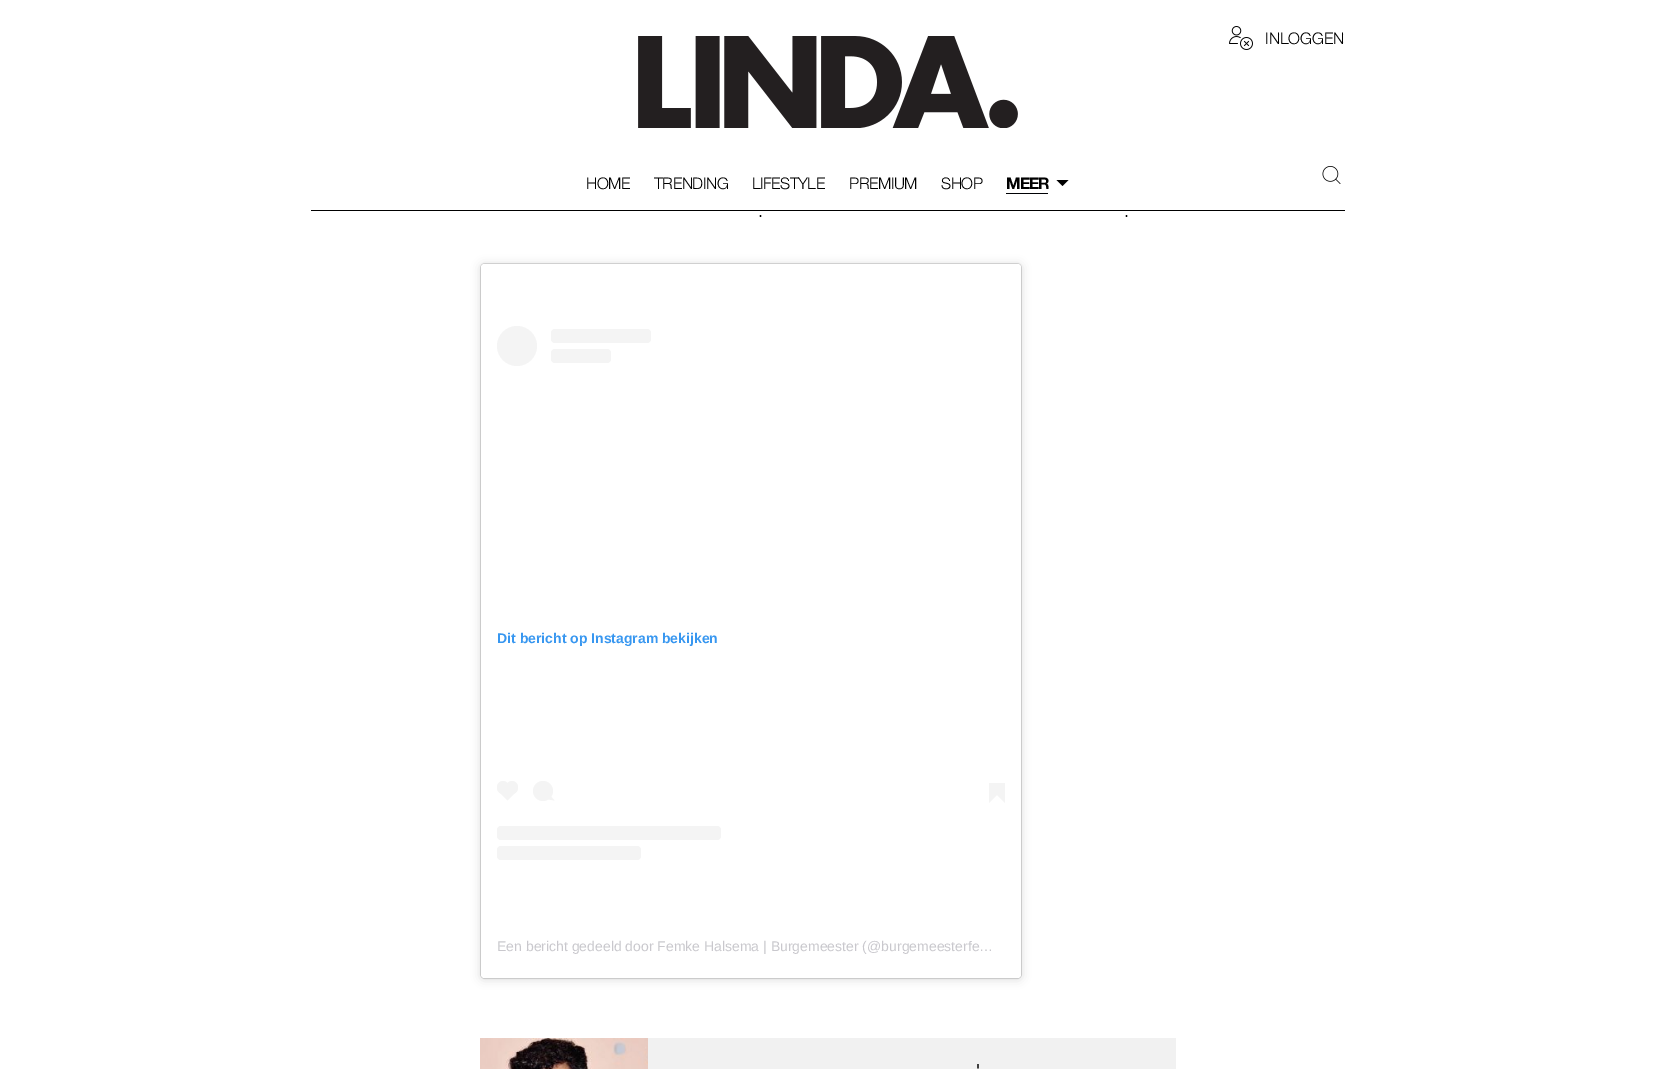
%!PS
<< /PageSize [1655 1069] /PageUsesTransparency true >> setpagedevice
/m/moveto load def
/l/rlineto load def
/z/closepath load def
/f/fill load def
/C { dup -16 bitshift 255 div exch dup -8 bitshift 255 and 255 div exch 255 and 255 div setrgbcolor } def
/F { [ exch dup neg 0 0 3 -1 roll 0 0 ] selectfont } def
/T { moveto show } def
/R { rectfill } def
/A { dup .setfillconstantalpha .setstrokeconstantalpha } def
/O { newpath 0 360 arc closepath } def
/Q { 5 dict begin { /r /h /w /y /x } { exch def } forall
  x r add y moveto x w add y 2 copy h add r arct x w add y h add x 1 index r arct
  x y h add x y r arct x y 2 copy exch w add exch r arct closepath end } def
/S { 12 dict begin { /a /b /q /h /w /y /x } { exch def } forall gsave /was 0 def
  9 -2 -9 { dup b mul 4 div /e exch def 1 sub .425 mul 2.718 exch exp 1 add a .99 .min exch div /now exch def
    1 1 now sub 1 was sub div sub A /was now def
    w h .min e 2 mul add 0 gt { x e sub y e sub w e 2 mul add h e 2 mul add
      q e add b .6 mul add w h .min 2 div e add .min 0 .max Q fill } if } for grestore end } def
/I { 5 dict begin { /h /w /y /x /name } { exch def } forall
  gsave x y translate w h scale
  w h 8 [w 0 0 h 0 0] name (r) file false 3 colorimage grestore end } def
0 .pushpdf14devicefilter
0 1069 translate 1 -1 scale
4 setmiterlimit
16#FFFFFF C
0 0 1655 1069 R
16#000000 C
311 210 1034 1 R
(1.rgb) 638 36 380 92 I
(2.rgb) 1229 26 24 24 I
/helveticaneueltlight-Light 16 F
(INLOGGEN) 1265 44 T
586 189 m -.5 0 (HOME) ashow
654 189 m -.5 0 (TRENDING) ashow
752 189 m -.5 0 (LIFESTYLE) ashow
849 189 m -.5 0 (PREMIUM) ashow
941 189 m -.5 0 (SHOP) ashow
/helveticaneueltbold-Bold 16 F
1006 189 m -1 0 (MEER) ashow
16#000105 C
1006 193 42 1 R
16#000000 C
1056.5 180 m 12 0 l -6 6 l z f
(3.rgb) 1322 166 19 18 I
/helveticaneueltlight-Light 18 F
(.) 758 217 T
(.) 1124 217 T
481 265 540 714 3 5 .15 S
481 264 540 714 3 .5 .5 S
16#FFFFFF C
481 264 540 714 3 Q f
16#F4F4F4 C
517 346 20 O f
551 329 100 14 4 Q f
551 349 60 14 4 Q f
/LiberationSans-Bold 14 F
16#3897F0 C
(Dit bericht op Instagram bekijken) 497 643 T
16#F4F4F4 C
497 781 12 13 6 Q f
498.5 791.5 m 9 -8.5 l 9 8.5 l -9 9 l z f
506 781 12 13 6 Q f
543 791 10 O f
548.5 799.5 m 2 -3.5 l 4 4.5 l z f
989 783 16 12 R
989 795 m 8 0 l -8 8 l z f
997 795 m 8 0 l 0 8 l z f
497 826 224 14 4 Q f
497 846 144 14 4 Q f
/LiberationSans-Regular 14 F
16#C9C8CD C
(Een bericht gedeeld door Femke Halsema | Burgemeester \(@burgemeesterfe…) 497 951 T
16#F1F1F1 C
648 1038 528 31 R
(4.rgb) 480 1038 168 31 I
/helveticaneueltbold-Bold 14 F
16#000000 C
(') 976 1074 T
.poppdf14devicefilter showpage
